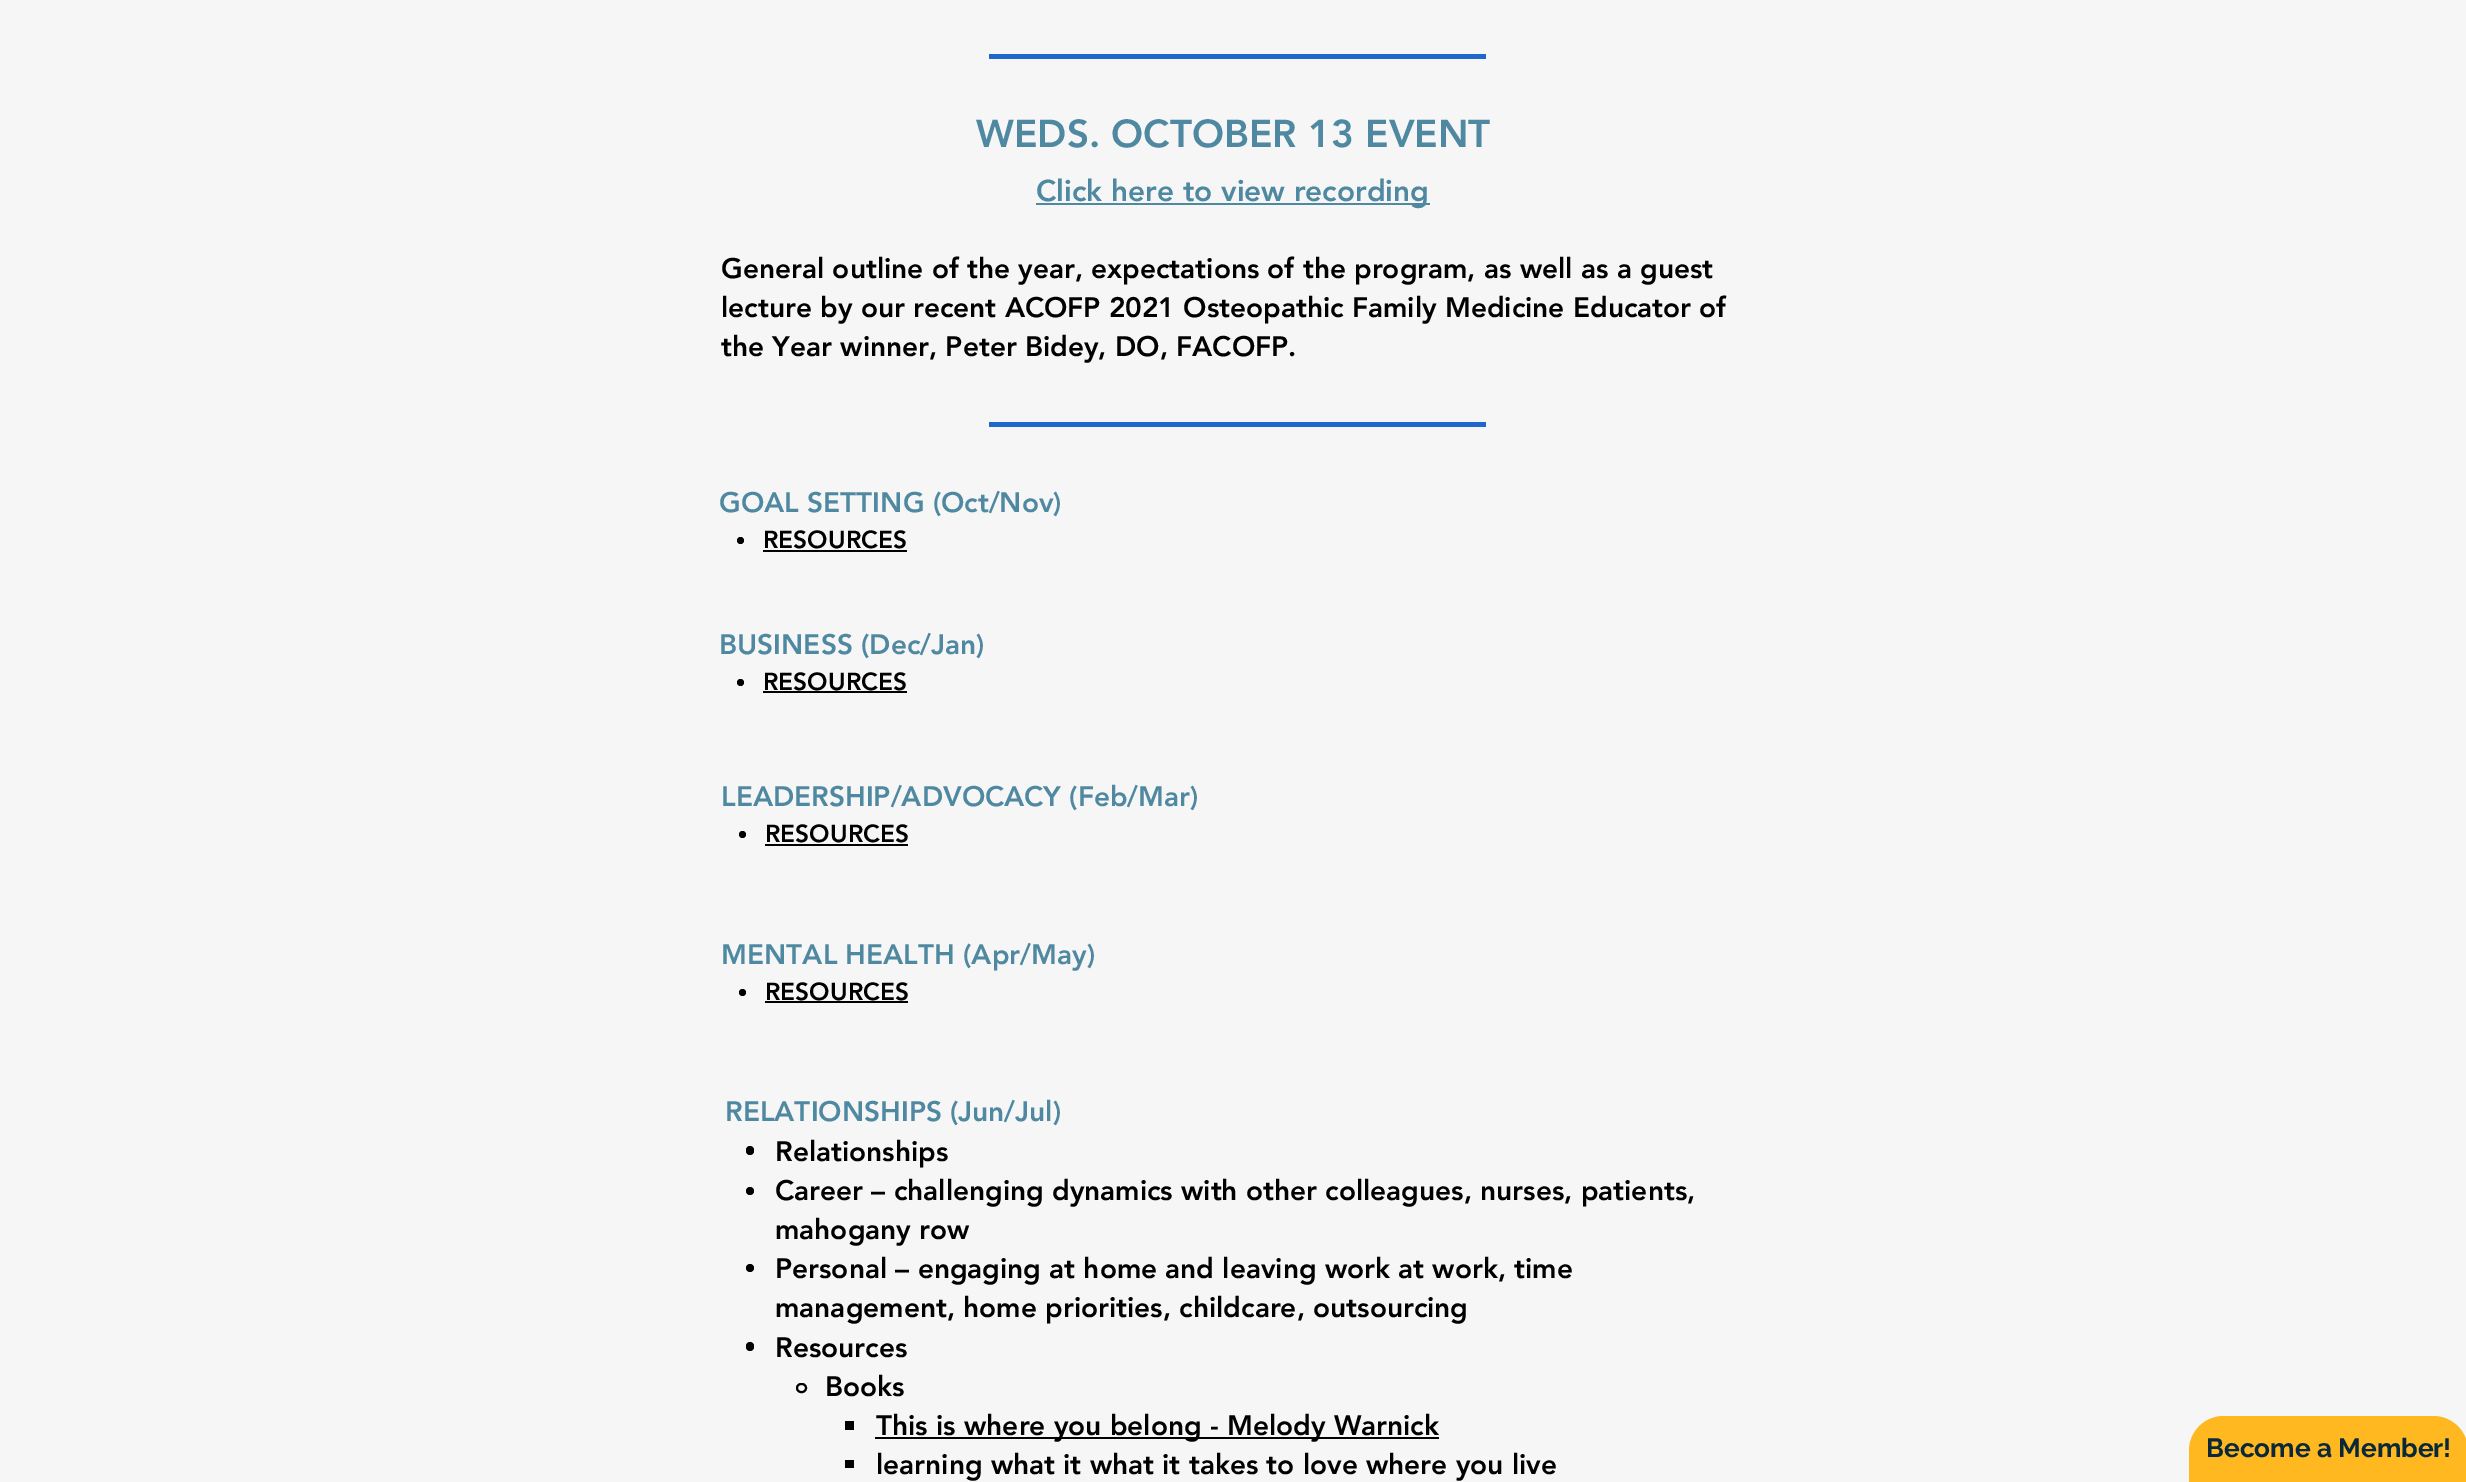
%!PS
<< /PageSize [2466 1482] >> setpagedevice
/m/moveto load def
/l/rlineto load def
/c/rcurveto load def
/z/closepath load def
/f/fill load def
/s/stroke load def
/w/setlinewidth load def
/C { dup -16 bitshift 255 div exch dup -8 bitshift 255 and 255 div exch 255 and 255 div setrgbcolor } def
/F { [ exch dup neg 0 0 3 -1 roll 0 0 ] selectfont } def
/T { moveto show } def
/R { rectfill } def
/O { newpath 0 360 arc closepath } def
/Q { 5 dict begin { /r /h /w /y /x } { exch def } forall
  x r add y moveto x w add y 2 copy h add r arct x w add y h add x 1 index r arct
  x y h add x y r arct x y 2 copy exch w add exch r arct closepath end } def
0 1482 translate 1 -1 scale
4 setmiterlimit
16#F6F6F6 C
0 0 2466 1482 R
16#1D67CD C
989 54 497 5 R
/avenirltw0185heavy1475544-Black 38.5 F
16#4F88A1 C
(WEDS. OCTOBER 13 EVENT) 976 147 T
1036 203 394 2 R
/avenirltw0185heavy1475544-Black 29.75 F
(Click here to view recording) 1036 201 T
/avenirltw0185heavy1475544-Black 28 F
16#000000 C
(General outline of the year, expectations of the program, as well as a guest) 721 278 T
(lecture by our recent ACOFP 2021 Osteopathic Family Medicine Educator of) 721 317 T
(the Year winner, Peter Bidey, DO, FACOFP.) 721 356 T
16#1D67CD C
989 422 497 5 R
16#4F88A1 C
(GOAL SETTING \(Oct/Nov\)) 719 512 T
16#000000 C
740.5 540.5 3.5 O f
/avenirltw0185heavy1475544-Black 24.5 F
(RESOURCES) 763 548 T
763 550 144 2 R
/avenirltw0185heavy1475544-Black 28 F
16#4F88A1 C
(BUSINESS \(Dec/Jan\)) 719 654 T
16#000000 C
740.5 682.5 3.5 O f
/avenirltw0185heavy1475544-Black 24.5 F
(RESOURCES) 763 690 T
763 691 144 2 R
/avenirltw0185heavy1475544-Black 28 F
16#4F88A1 C
(LEADERSHIP/ADVOCACY \(Feb/Mar\)) 721 806 T
16#000000 C
742.5 834.5 3.5 O f
/avenirltw0185heavy1475544-Black 24.5 F
(RESOURCES) 765 842 T
765 844 143 2 R
/avenirltw0185heavy1475544-Black 28 F
16#4F88A1 C
(MENTAL HEALTH \(Apr/May\)) 721 964 T
16#000000 C
742.5 992.5 3.5 O f
/avenirltw0185heavy1475544-Black 24.5 F
(RESOURCES) 765 1000 T
765 1001 143 2 R
/avenirltw0185heavy1475544-Black 28 F
16#4F88A1 C
(RELATIONSHIPS \(Jun/Jul\)) 725 1121 T
16#000000 C
746 1146 8 9 4 Q f
(Relationships) 775 1161 T
750 1191 4 O f
(Career – challenging dynamics with other colleagues, nurses, patients,) 775 1200 T
(mahogany row) 775 1239 T
750 1268 4 O f
(Personal – engaging at home and leaving work at work, time) 775 1278 T
(management, home priorities, childcare, outsourcing) 775 1317 T
746 1342 8 9 4 Q f
(Resources) 775 1357 T
2 w
797 1384 9 8 4 Q s
(Books) 825 1396 T
845 1421 9 9 R
875 1437 564 2 R
(This is where you belong - Melody Warnick) 876 1435 T
845 1460 9 8 R
(learning what it what it takes to love where you live) 876 1474 T
16#FFB81F C
2224 1416 m 209 0 l 19.5 0 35 15.5 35 35 c 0 31 l -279 0 l 0 -31 l 0 -19.5 15.5 -35 35 -35 c z f
/Raleway-Bold 26.25 F
16#09293A C
(Become a Member!) 2206 1457 T
showpage
